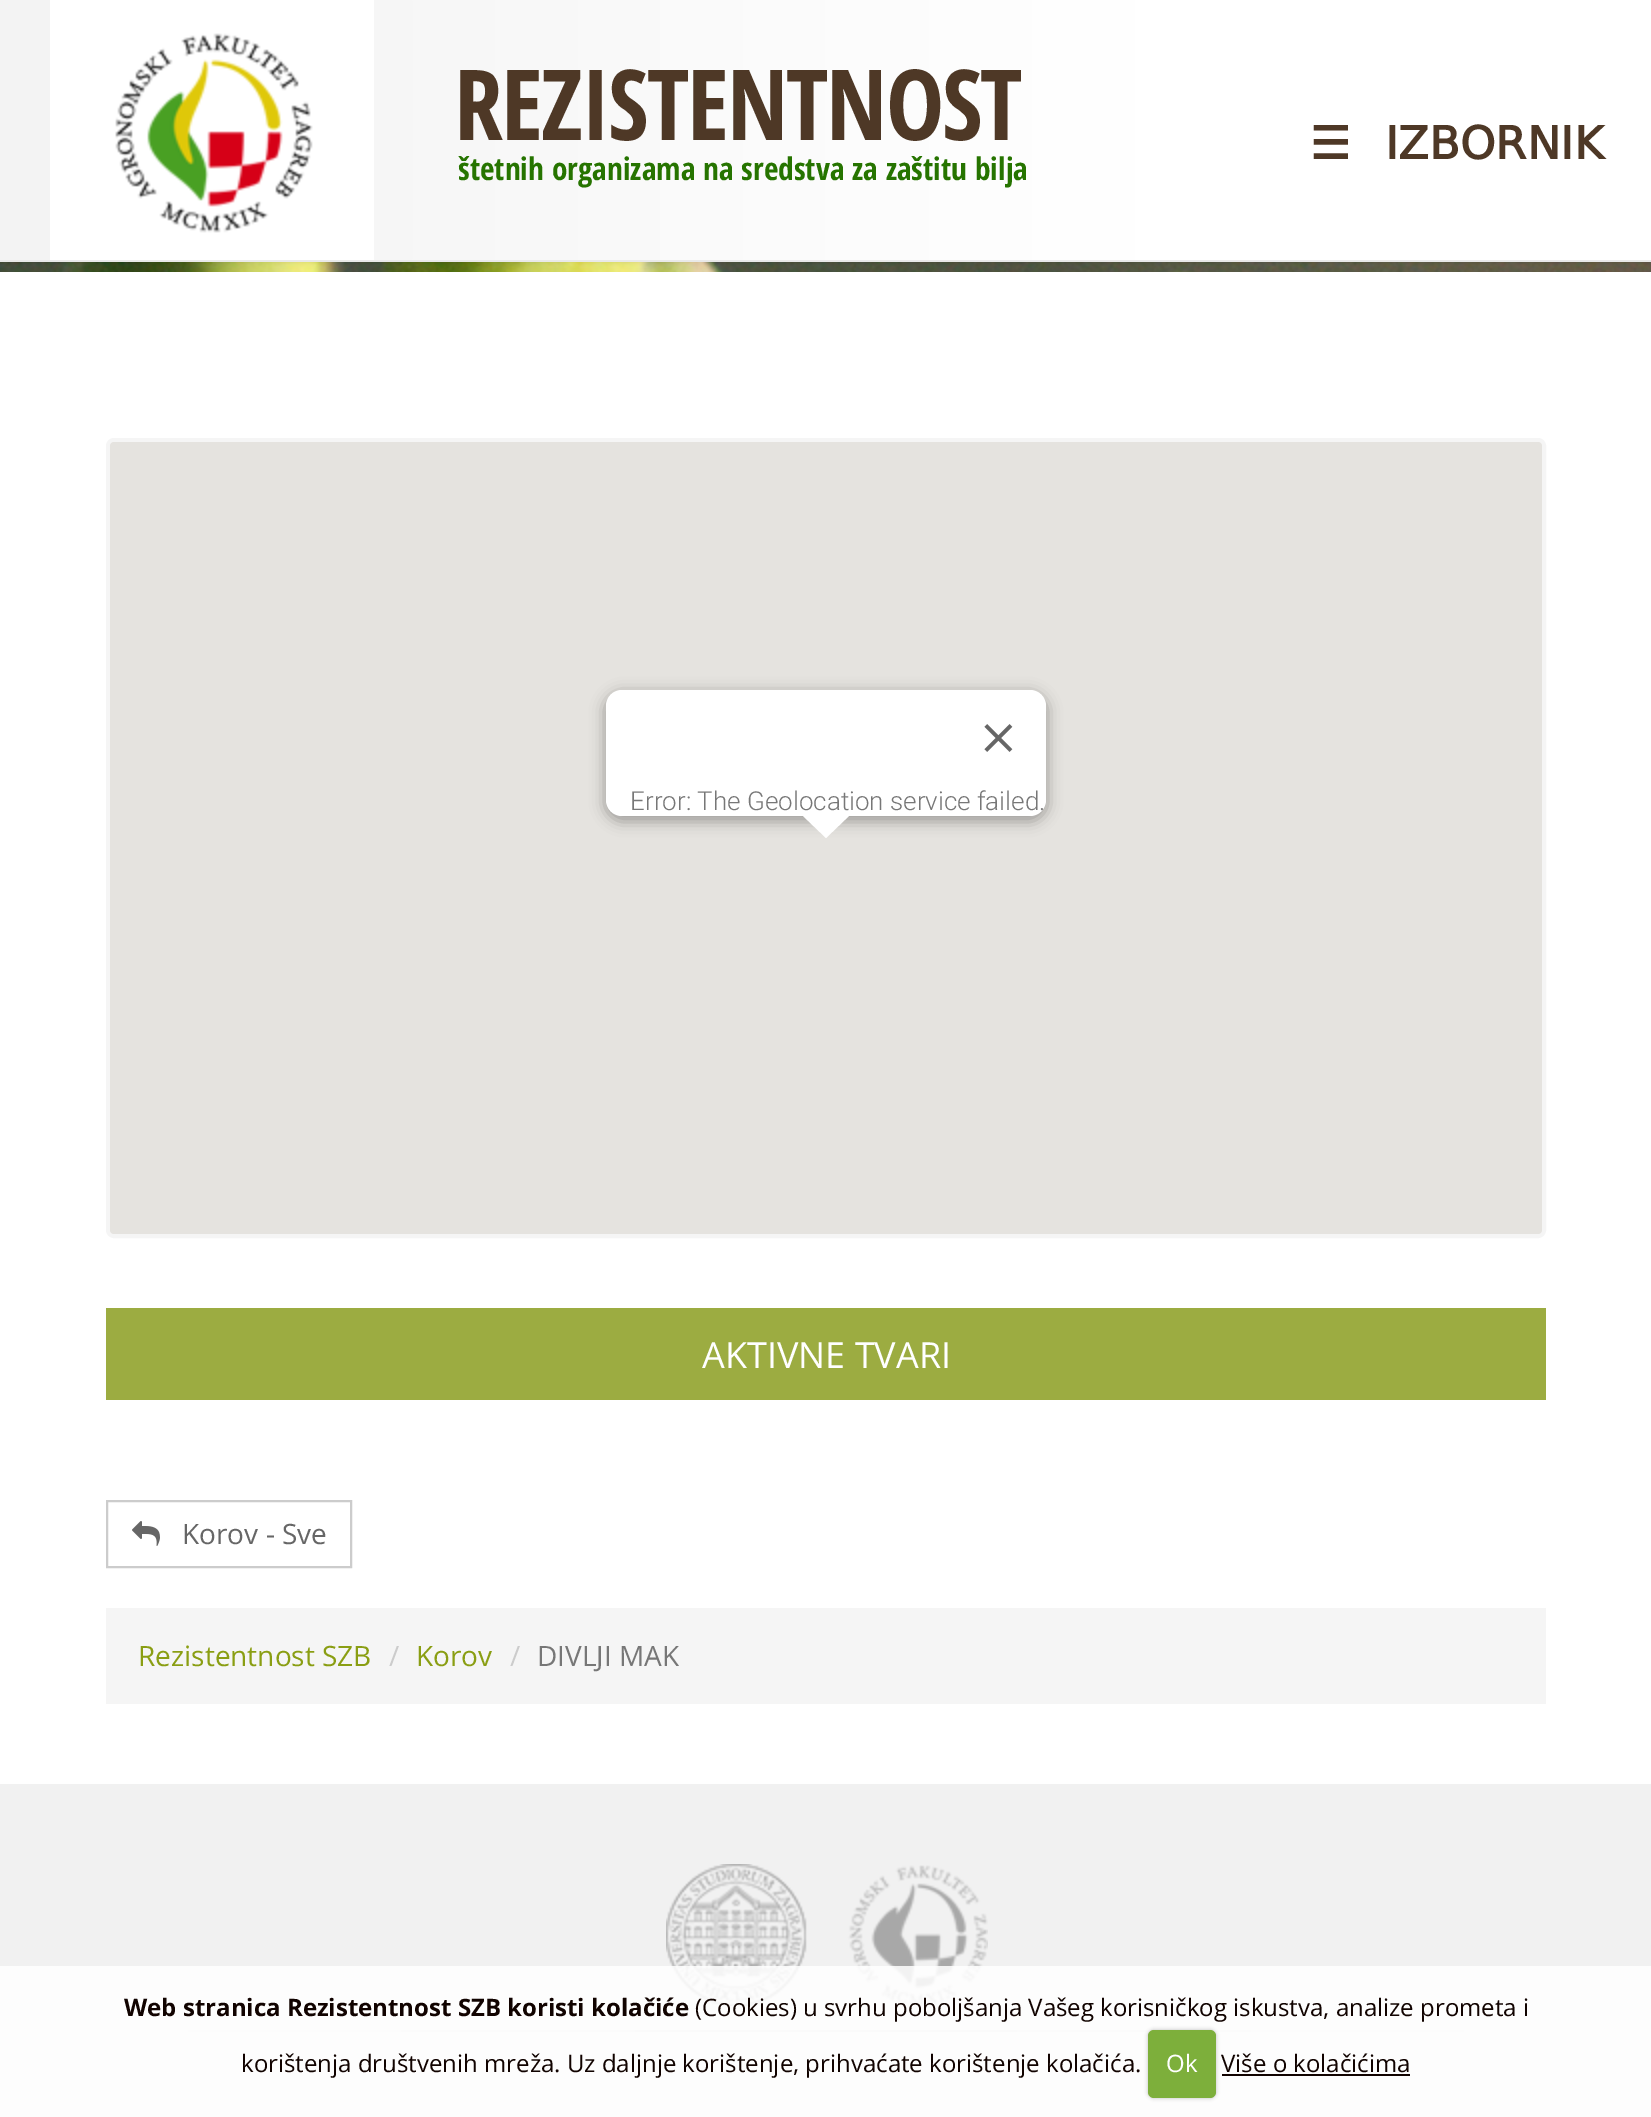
%!PS
<< /PageSize [1651 2117] /PageUsesTransparency true >> setpagedevice
/m/moveto load def
/l/rlineto load def
/z/closepath load def
/f/fill load def
/s/stroke load def
/q/gsave load def
/Q_/grestore load def
/w/setlinewidth load def
/C { dup -16 bitshift 255 div exch dup -8 bitshift 255 and 255 div exch 255 and 255 div setrgbcolor } def
/F { [ exch dup neg 0 0 3 -1 roll 0 0 ] selectfont } def
/T { moveto show } def
/R { rectfill } def
/A { dup .setfillconstantalpha .setstrokeconstantalpha } def
/Q { 5 dict begin { /r /h /w /y /x } { exch def } forall
  x r add y moveto x w add y 2 copy h add r arct x w add y h add x 1 index r arct
  x y h add x y r arct x y 2 copy exch w add exch r arct closepath end } def
/S { 12 dict begin { /a /b /q /h /w /y /x } { exch def } forall gsave /was 0 def
  9 -2 -9 { dup b mul 4 div /e exch def 1 sub .425 mul 2.718 exch exp 1 add a .99 .min exch div /now exch def
    1 1 now sub 1 was sub div sub A /was now def
    w h .min e 2 mul add 0 gt { x e sub y e sub w e 2 mul add h e 2 mul add
      q e add b .6 mul add w h .min 2 div e add .min 0 .max Q fill } if } for grestore end } def
/I { 5 dict begin { /h /w /y /x /name } { exch def } forall
  gsave x y translate w h scale
  w h 8 [w 0 0 h 0 0] name (r) file false 3 colorimage grestore end } def
0 .pushpdf14devicefilter
0 2117 translate 1 -1 scale
4 setmiterlimit
16#FFFFFF C
0 0 1651 2117 R
(2.rgb) 0 262 1651 10 I
16#000000 C
0 0 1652 262 0 3 .1 S
q 0 0 m 1651 0 l 0 260 l -1651 0 l z clip newpath
<< /ShadingType 2 /ColorSpace /DeviceRGB /Coords [0 130 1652 130] /Extend [true true] /Function << /FunctionType 3 /Domain [0 1] /Functions [<< /FunctionType 2 /Domain [0 1] /C0 [.953 .953 .953] /C1 [.953 .953 .953] /N 1 >> << /FunctionType 2 /Domain [0 1] /C0 [.953 .953 .953] /C1 [1 1 1] /N 1 >> << /FunctionType 2 /Domain [0 1] /C0 [1 1 1] /C1 [1 1 1] /N 1 >>] /Bounds [.01 .69] /Encode [0 1 0 1 0 1] >> >> shfill Q_
16#E9E9E9 C
0 260 1651 2 R
16#FFFFFF C
50 0 324 260 R
(1.rgb) 115 33 198 200 I
/OpenSansCondensed-Bold 98 F
16#4E3826 C
454 140 m -2 0 (REZISTENTNOST) ashow
/OpenSansCondensed-Bold 31.4 F
16#267400 C
(štetnih organizama na sredstva za zaštitu bilja) 458 180 T
/DejaVuSans-Bold 45 F
16#4E3826 C
(☰) 1310 159 T
(IZBORNIK) 1385 159 T
16#F5F5F5 C
4 w
108 440 1436 796 6 Q s
16#E5E3DF C
110 442 1432 792 4 Q f
16#000000 C
604 692 444 130 18 7 .3 S
16#FFFFFF C
606 690 440 126 16 Q f
(3.rgb) 984 724 29 28 I
q
606 690 440 126 16 Q clip newpath
/Roboto-Light 26 F
16#777777 C
(Error: The Geolocation service failed.) 630 810 T
Q_
802 814 m 0 1 l 24 23 l 25 -24 l z f
16#9CAC41 C
106 1308 1440 92 R
/OpenSans-Regular 36 F
16#FFFFFF C
(AKTIVNE TVARI) 702 1368 T
16#CCCCCC C
2 w
107 1501 244 66 rectstroke
(4.rgb) 132 1521 28 25 I
/OpenSans-Regular 28 F
16#666666 C
(Korov - Sve) 182 1544 T
16#F5F5F5 C
106 1608 1440 96 R
16#8A9E13 C
(Rezistentnost SZB) 138 1666 T
16#CCCCCC C
(/) 389 1666 T
16#8A9E13 C
(Korov) 416 1666 T
16#CCCCCC C
(/) 510 1666 T
16#777777 C
(DIVLJI MAK) 537 1666 T
16#F1F1F1 C
0 1784 1651 333 R
(5.rgb) 666 1864 322 142 I
q 188 2030 m 1276 0 l 0 2 l -1276 0 l z clip newpath
<< /ShadingType 2 /ColorSpace /DeviceRGB /Coords [106 2031 1546 2031] /Extend [true true] /Function << /FunctionType 3 /Domain [0 1] /Functions [<< /FunctionType 2 /Domain [0 1] /C0 [.945 .945 .945] /C1 [.859 .859 .859] /N 1 >> << /FunctionType 2 /Domain [0 1] /C0 [.859 .859 .859] /C1 [.945 .945 .945] /N 1 >>] /Bounds [.5] /Encode [0 1 0 1] >> >> shfill Q_
0.85 A
16#FFFFFF C
0 1966 1651 151 R
/OpenSans-Bold 24 F
1 A
16#110300 C
(Web stranica Rezistentnost SZB koristi kolačiće) 124 2016 T
/OpenSans-Regular 24 F
(\(Cookies\) u svrhu poboljšanja Vašeg korisničkog iskustva, analize prometa i) 695 2016 T
(korištenja društvenih mreža. Uz daljnje korištenje, prihvaćate korištenje kolačića.) 241 2072 T
16#000000 C
1148 2030 68 68 6 2 .25 S
16#7DAF3B C
1148 2030 68 68 6 Q f
16#FFFFFF C
(Ok) 1166 2072 T
16#110300 C
(Više o kolačićima) 1221 2072 T
1222 2074 188 2 R
.poppdf14devicefilter showpage
